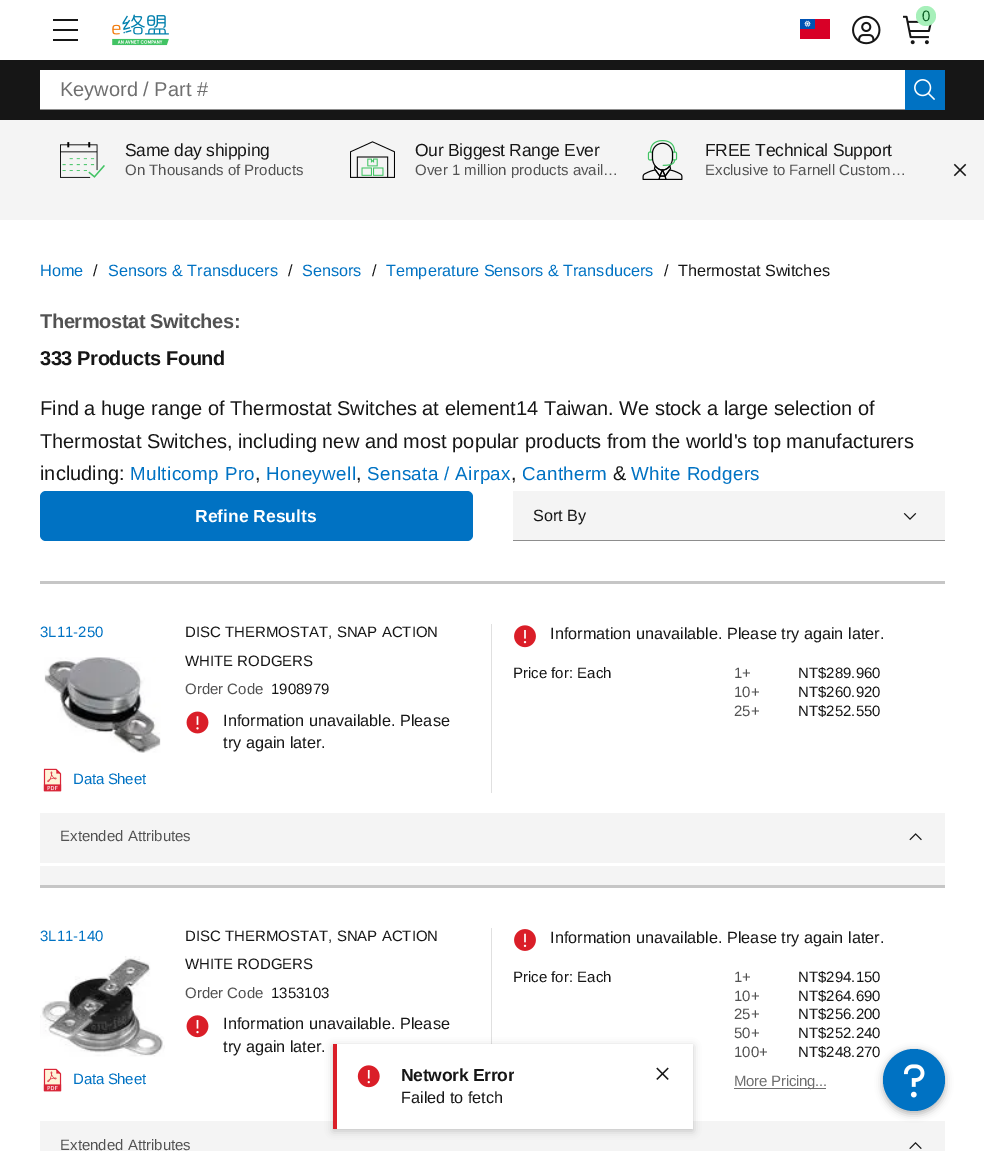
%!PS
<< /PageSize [984 1151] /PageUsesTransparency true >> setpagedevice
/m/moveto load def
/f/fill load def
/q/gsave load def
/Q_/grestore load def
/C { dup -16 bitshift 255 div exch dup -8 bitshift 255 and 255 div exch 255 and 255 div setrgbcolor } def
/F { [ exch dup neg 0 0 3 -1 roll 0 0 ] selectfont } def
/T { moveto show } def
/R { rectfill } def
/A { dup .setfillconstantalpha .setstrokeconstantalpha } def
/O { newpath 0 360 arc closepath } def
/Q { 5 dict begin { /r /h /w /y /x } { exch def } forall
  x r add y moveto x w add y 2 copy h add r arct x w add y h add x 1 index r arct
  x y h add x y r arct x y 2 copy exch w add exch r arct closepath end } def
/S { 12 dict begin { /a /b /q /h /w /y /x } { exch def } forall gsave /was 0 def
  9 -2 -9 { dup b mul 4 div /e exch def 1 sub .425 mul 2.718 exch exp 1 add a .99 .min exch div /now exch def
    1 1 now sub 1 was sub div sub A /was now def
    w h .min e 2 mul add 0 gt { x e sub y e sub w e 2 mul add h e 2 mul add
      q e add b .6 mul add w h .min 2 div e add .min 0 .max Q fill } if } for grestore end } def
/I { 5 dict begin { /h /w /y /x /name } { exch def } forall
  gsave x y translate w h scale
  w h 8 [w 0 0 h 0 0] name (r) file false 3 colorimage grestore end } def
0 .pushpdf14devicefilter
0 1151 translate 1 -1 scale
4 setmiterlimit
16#FFFFFF C
0 0 984 1151 R
16#161616 C
53 19 25 2 R
53 29 25 2 R
53 39 25 2 R
(1.rgb) 112 14 57 32 I
(2.rgb) 800 19 30 20 I
(3.rgb) 852 15 29 30 I
(4.rgb) 903 15 29 30 I
16#A7F0BA C
926 16 10 O f
/LiberationSans-Regular 15 F
16#0E6027 C
(0) 922 21 T
16#161616 C
0 60 984 60 R
16#FFFFFF C
40 70 865 39 R
16#8D8D8D C
40 109 865 1 R
/LiberationSans-Regular 20 F
16#6F6F6F C
(Keyword / Part #) 60 96 T
16#0072C3 C
905 70 40 40 R
(5.rgb) 914 79 21 21 I
16#F4F4F4 C
0 120 984 100 R
(6.rgb) 60 142 45 36 I
/LiberationSans-Regular 17.5 F
16#161616 C
125 156 m -.25 0 (Same day shipping) ashow
/LiberationSans-Regular 15 F
16#525252 C
(On Thousands of Products) 125 175 T
(7.rgb) 350 141 45 37 I
/LiberationSans-Regular 17.5 F
16#161616 C
415 156 m -.25 0 (Our Biggest Range Ever) ashow
/LiberationSans-Regular 15 F
16#525252 C
(Over 1 million products avail…) 415 175 T
(8.rgb) 642 140 41 40 I
/LiberationSans-Regular 17.5 F
16#161616 C
705 156 m -.25 0 (FREE Technical Support) ashow
/LiberationSans-Regular 15 F
16#525252 C
(Exclusive to Farnell Custom…) 705 175 T
(9.rgb) 953 163 14 14 I
/LiberationSans-Regular 16.25 F
16#0072C3 C
(Home) 40 276 T
16#161616 C
(/) 93 276 T
16#0072C3 C
(Sensors & Transducers) 108 276 T
16#161616 C
(/) 288 276 T
16#0072C3 C
(Sensors) 302 276 T
16#161616 C
(/) 372 276 T
16#0072C3 C
(Temperature Sensors & Transducers) 386 276 T
16#161616 C
(/) 664 276 T
(Thermostat Switches) 678 276 T
/LiberationSans-Bold 20 F
16#525252 C
40 328 m -.4 0 (Thermostat Switches:) ashow
16#161616 C
40 365 m -.4 0 (333 Products Found) ashow
/LiberationSans-Regular 20 F
(Find a huge range of Thermostat Switches at element14 Taiwan. We stock a large selection of) 40 415 T
(Thermostat Switches, including new and most popular products from the world's top manufacturers) 40 448 T
(including:) 40 480 T
/LiberationSans-Regular 18.75 F
16#0072C3 C
130 480 m .4 0 (Multicomp Pro) ashow
/LiberationSans-Regular 20 F
16#161616 C
(,) 255 480 T
/LiberationSans-Regular 18.75 F
16#0072C3 C
266 480 m .4 0 (Honeywell) ashow
/LiberationSans-Regular 20 F
16#161616 C
(,) 356 480 T
/LiberationSans-Regular 18.75 F
16#0072C3 C
367 480 m .4 0 (Sensata / Airpax) ashow
/LiberationSans-Regular 20 F
16#161616 C
(,) 511 480 T
/LiberationSans-Regular 18.75 F
16#0072C3 C
522 480 m .4 0 (Cantherm) ashow
/LiberationSans-Regular 20 F
16#161616 C
(&) 613 480 T
/LiberationSans-Regular 18.75 F
16#0072C3 C
631 480 m .4 0 (White Rodgers) ashow
40 491 433 50 6 Q f
/LiberationSans-Bold 17.5 F
16#FFFFFF C
(Refine Results) 195 522 T
16#F4F4F4 C
513 491 432 49 R
16#8D8D8D C
513 540 432 1 R
/LiberationSans-Regular 16.25 F
16#161616 C
(Sort By) 533 521 T
(10.rgb) 903 513 14 7 I
16#C6C6C6 C
40 581 905 3 R
/LiberationSans-Regular 15 F
16#0072C3 C
(3L11-250) 40 637 T
(11.rgb) 44 657 117 96 I
(12.rgb) 43 768 19 24 I
73 784 m -.25 0 (Data Sheet) ashow
16#E0E0E0 C
491 624 1 169 R
16#161616 C
(DISC THERMOSTAT, SNAP ACTION) 185 637 T
(WHITE RODGERS) 185 666 T
16#525252 C
(Order Code) 185 694 T
16#161616 C
(1908979) 271 694 T
(13.rgb) 186 711 23 23 I
/LiberationSans-Regular 16.25 F
(Information unavailable. Please) 223 726 T
(try again later.) 223 748 T
(14.rgb) 514 625 22 23 I
(Information unavailable. Please try again later.) 550 639 T
/LiberationSans-Regular 15 F
(Price for: Each) 513 678 T
16#525252 C
(1+) 734 678 T
16#161616 C
(NT$289.960) 798 678 T
16#525252 C
(10+) 734 697 T
16#161616 C
(NT$260.920) 798 697 T
16#525252 C
(25+) 734 716 T
16#161616 C
(NT$252.550) 798 716 T
16#F4F4F4 C
40 813 905 72 R
16#525252 C
(Extended Attributes) 60 841 T
(15.rgb) 909 833 13 8 I
16#FFFFFF C
40 863 905 3 R
16#C6C6C6 C
40 885 905 3 R
16#0072C3 C
(3L11-140) 40 941 T
(16.rgb) 40 956 125 101 I
(12.rgb) 43 1068 19 24 I
73 1084 m -.25 0 (Data Sheet) ashow
16#E0E0E0 C
491 928 1 116 R
16#161616 C
(DISC THERMOSTAT, SNAP ACTION) 185 941 T
(WHITE RODGERS) 185 969 T
16#525252 C
(Order Code) 185 998 T
16#161616 C
(1353103) 271 998 T
(17.rgb) 186 1015 23 23 I
/LiberationSans-Regular 16.25 F
(Information unavailable. Please) 223 1029 T
(try again later.) 223 1052 T
(18.rgb) 514 929 22 22 I
(Information unavailable. Please try again later.) 550 943 T
/LiberationSans-Regular 15 F
(Price for: Each) 513 982 T
16#525252 C
(1+) 734 982 T
16#161616 C
(NT$294.150) 798 982 T
16#525252 C
(10+) 734 1001 T
16#161616 C
(NT$264.690) 798 1001 T
16#525252 C
(25+) 734 1019 T
16#161616 C
(NT$256.200) 798 1019 T
16#525252 C
(50+) 734 1038 T
16#161616 C
(NT$252.240) 798 1038 T
16#525252 C
(100+) 734 1057 T
16#161616 C
(NT$248.270) 798 1057 T
16#6F6F6F C
734 1088 92 1 R
734 1086 m -.25 0 (More Pricing...) ashow
16#F4F4F4 C
40 1121 905 30 R
16#525252 C
(Extended Attributes) 60 1150 T
(19.rgb) 909 1142 13 7 I
16#000000 C
333 1046 360 85 0 4 .2 S
16#FFFFFF C
337 1044 356 85 R
16#DA1E28 C
333 1044 4 85 R
(20.rgb) 357 1065 23 23 I
q
356 1044 158 85 rectclip
/LiberationSans-Bold 17.5 F
16#161616 C
401 1081 m -.25 0 (Network Error) ashow
Q_
/LiberationSans-Regular 16.25 F
16#161616 C
(Failed to fetch) 401 1103 T
(21.rgb) 656 1067 13 13 I
16#000000 C
883 1051 62 63 31 4 .3 S
16#0072C3 C
914 1080 31 O f
(22.rgb) 904 1064 21 34 I
.poppdf14devicefilter showpage
